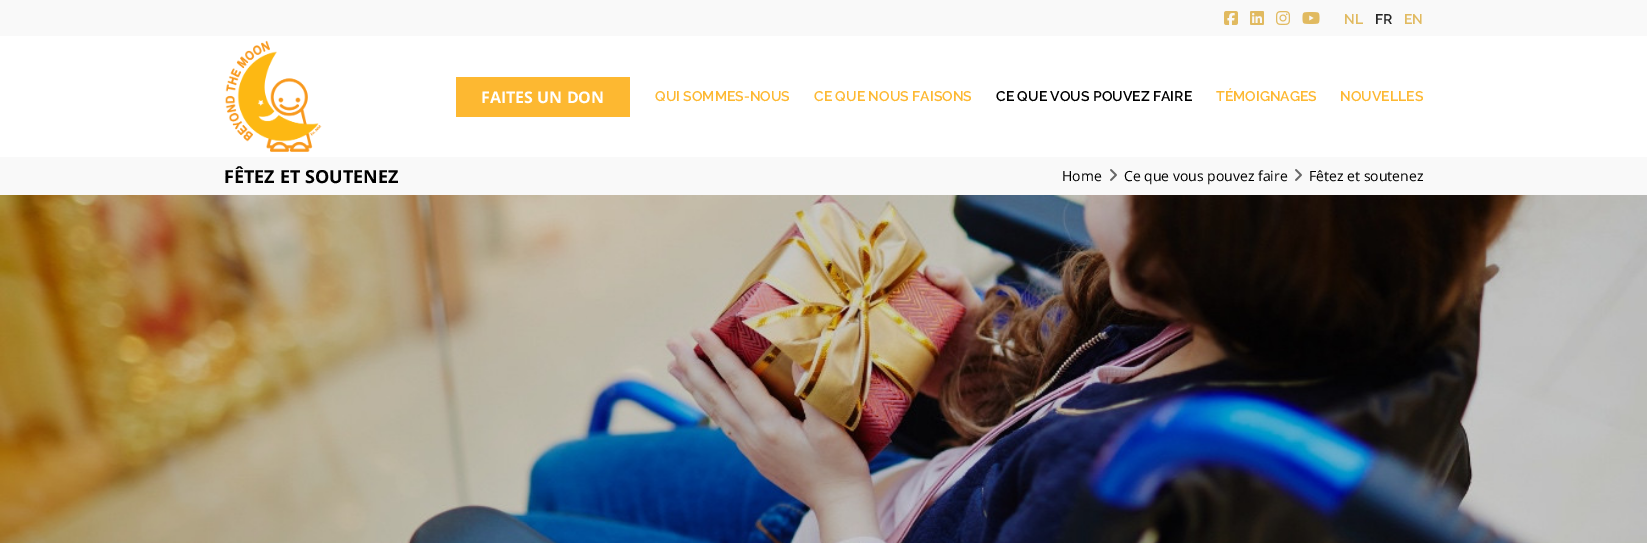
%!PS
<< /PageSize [1647 543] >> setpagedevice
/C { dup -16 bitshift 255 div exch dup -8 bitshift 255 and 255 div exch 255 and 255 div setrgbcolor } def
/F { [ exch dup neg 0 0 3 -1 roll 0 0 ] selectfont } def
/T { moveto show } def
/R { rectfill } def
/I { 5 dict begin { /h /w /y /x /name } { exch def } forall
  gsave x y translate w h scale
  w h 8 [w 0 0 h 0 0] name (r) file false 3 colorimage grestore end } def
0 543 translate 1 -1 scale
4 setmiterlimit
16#FFFFFF C
0 0 1647 543 R
16#F9F9F9 C
0 0 1647 36 R
(1.rgb) 1224 11 14 14 I
(2.rgb) 1250 11 14 14 I
(3.rgb) 1276 11 14 14 I
(4.rgb) 1302 12 18 12 I
/Raleway-SemiBold 14 F
16#E1BA60 C
(NL) 1344 24 T
16#242424 C
(FR) 1375 24 T
16#E1BA60 C
(EN) 1404 24 T
(5.rgb) 225 40 97 112 I
16#FDB831 C
456 77 174 40 R
/OpenSans-Bold 16 F
16#FFFFFF C
(FAITES UN DON) 481 103 T
/Raleway-SemiBold 14 F
16#FDB831 C
(QUI SOMMES-NOUS) 655 101 T
(CE QUE NOUS FAISONS) 814 101 T
16#000000 C
(CE QUE VOUS POUVEZ FAIRE) 996 101 T
16#FDB831 C
(TÉMOIGNAGES) 1216 101 T
(NOUVELLES) 1340 101 T
16#F9F9F9 C
0 157 1647 38 R
/OpenSans-Bold 18 F
16#000000 C
(FÊTEZ ET SOUTENEZ) 224 183 T
/OpenSans-Regular 14 F
(Home) 1062 181 T
(6.rgb) 1110 169 7 12 I
(Ce que vous pouvez faire) 1124 181 T
(6.rgb) 1295 169 7 12 I
(Fêtez et soutenez) 1309 181 T
(7.rgb) 0 195 1647 348 I
showpage
